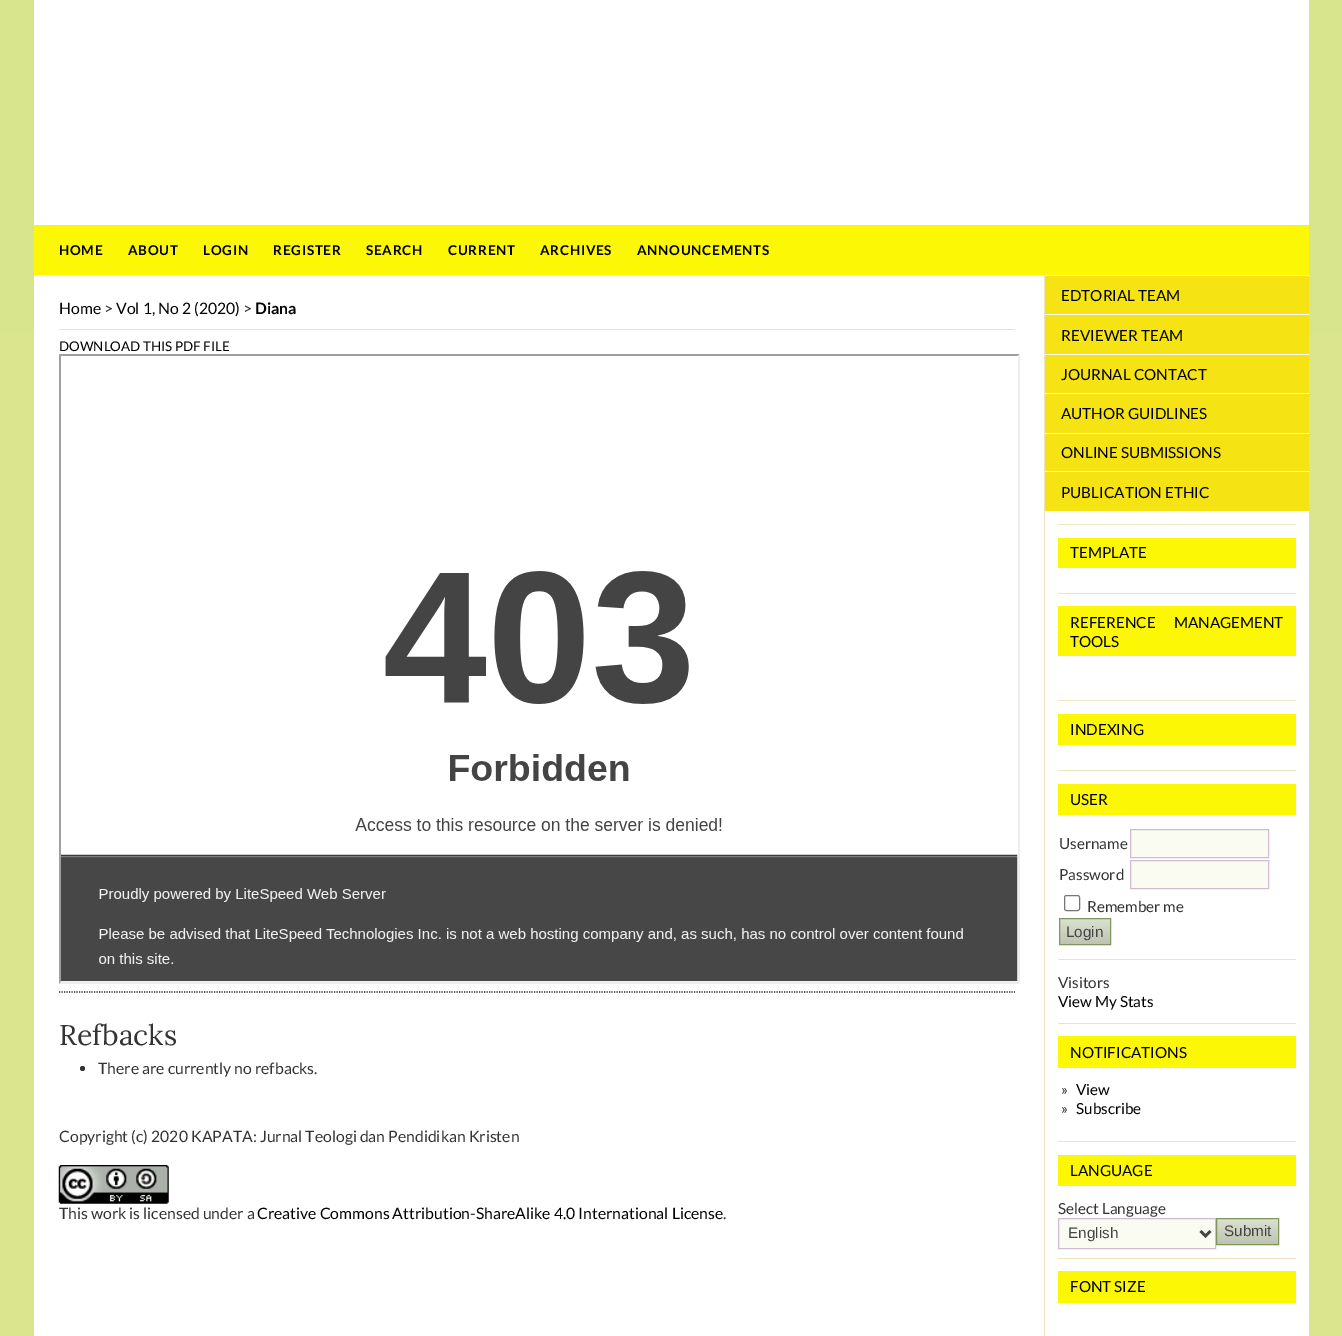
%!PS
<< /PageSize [1342 1336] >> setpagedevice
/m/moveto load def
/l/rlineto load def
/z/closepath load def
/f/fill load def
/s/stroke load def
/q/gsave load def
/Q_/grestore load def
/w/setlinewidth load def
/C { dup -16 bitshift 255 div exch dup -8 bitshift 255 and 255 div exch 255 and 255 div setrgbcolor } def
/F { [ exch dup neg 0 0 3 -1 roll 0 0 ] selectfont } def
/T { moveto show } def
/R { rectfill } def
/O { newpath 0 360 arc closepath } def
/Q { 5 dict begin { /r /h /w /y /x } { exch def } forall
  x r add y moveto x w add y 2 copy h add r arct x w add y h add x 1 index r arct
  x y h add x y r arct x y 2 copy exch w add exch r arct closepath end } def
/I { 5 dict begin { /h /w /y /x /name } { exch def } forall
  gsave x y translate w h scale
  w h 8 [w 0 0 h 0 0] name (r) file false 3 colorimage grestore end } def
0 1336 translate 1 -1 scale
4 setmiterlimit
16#FFFFFF C
0 0 1342 1336 R
q 0 0 m 1342 0 l 0 1336 l -1342 0 l z clip newpath
<< /ShadingType 2 /ColorSpace /DeviceRGB /Coords [671 0 671 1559] /Extend [true true] /Function << /FunctionType 2 /Domain [0 1] /C0 [.851 .898 .553] /C1 [.863 .898 .553] /N 1 >> >> shfill Q_
34 0 1275 225 R
34 275 1275 1061 R
16#FCF805 C
34 225 1275 50 R
/Lato-Bold 13.5 F
16#000000 C
59 255 m .75 0 (HOME) ashow
128 255 m .75 0 (ABOUT) ashow
203 255 m .75 0 (LOGIN) ashow
273 255 m .75 0 (REGISTER) ashow
366 255 m .75 0 (SEARCH) ashow
448 255 m .75 0 (CURRENT) ashow
540 255 m .75 0 (ARCHIVES) ashow
637 255 m .75 0 (ANNOUNCEMENTS) ashow
16#EBE4BE C
59 329 956 1 R
/Lato-Regular 15.75 F
16#000000 C
(Home) 59 314 T
16#333333 C
(>) 104 314 T
16#000000 C
(Vol 1, No 2 \(2020\)) 116 314 T
16#333333 C
(>) 243 314 T
/Lato-Bold 15.75 F
16#000000 C
(Diana) 255 314 T
/Lato-Regular 13.4 F
(DOWNLOAD THIS PDF FILE) 59 351 T
16#9F9F9F C
59 354 m 961 0 l -2 2 l -957 0 l z f
16#EEEEEE C
1020 354 m 0 630 l -2 -3 l 0 -625 l z f
1020 984 m -961 0 l 2 -3 l 957 0 l z f
16#9F9F9F C
59 984 m 0 -630 l 2 2 l 0 625 l z f
(1.rgb) 61 571 957 410 I
16#222222 C
1.2 w
[1.25 1.25] 0 setdash
59 992 m 956 0 l s
/Lora-Regular 28.5 F
16#333333 C
(Refbacks) 59 1045 T
82.5 1068.5 2.5 O f
/Lato-Regular 15.75 F
(There are currently no refbacks.) 98 1074 T
(Copyright \(c\) 2020 KAPATA: Jurnal Teologi dan Pendidikan Kristen) 59 1142 T
(2.rgb) 58 1165 111 39 I
(This work is licensed under a) 59 1219 T
16#000000 C
(Creative Commons Attribution-ShareAlike 4.0 International License) 257 1219 T
16#333333 C
(.) 723 1219 T
16#EBE4BE C
1044 275 1 1061 R
1058 524 238 1 R
16#F5E314 C
1045 276 264 38 R
/Lato-Regular 15.25 F
16#000000 C
(EDTORIAL TEAM) 1061 301 T
16#F5E314 C
1045 315 264 39 R
16#000000 C
(REVIEWER TEAM) 1061 341 T
16#F5E314 C
1045 355 264 38 R
16#000000 C
(JOURNAL CONTACT) 1061 380 T
16#F5E314 C
1045 394 264 39 R
16#000000 C
(AUTHOR GUIDLINES) 1061 419 T
16#F5E314 C
1045 434 264 37 R
16#000000 C
(ONLINE SUBMISSIONS) 1061 458 T
16#F5E314 C
1045 472 264 39 R
16#000000 C
(PUBLICATION ETHIC) 1061 498 T
16#EBE4BE C
1058 593 238 1 R
16#FCF805 C
1058 538 238 30 R
16#000000 C
(TEMPLATE) 1070 558 T
16#EBE4BE C
1058 700 238 1 R
16#FCF805 C
1058 606 238 50 R
16#000000 C
1070 628 m 15 0 32 (REFERENCE MANAGEMENT) widthshow
(TOOLS) 1070 647 T
16#EBE4BE C
1058 770 238 1 R
16#FCF805 C
1058 714 238 31 R
16#000000 C
(INDEXING) 1070 735 T
16#EBE4BE C
1058 959 238 1 R
16#FCF805 C
1058 784 238 31 R
16#000000 C
(USER) 1070 805 T
16#333333 C
(Username) 1059 849 T
16#FAFBF1 C
1130.5 829.5 m 138 0 l 0 28 l -138 0 l z q f Q_
16#D0BBD2 C
1 w
[] 0 setdash
s
16#333333 C
(Password) 1059 880 T
16#FAFBF1 C
1130.5 860.5 m 138 0 l 0 28 l -138 0 l z q f Q_
16#D0BBD2 C
s
16#767676 C
1064.5 895.5 15 15 2 Q s
16#333333 C
(Remember me) 1087 912 T
q 1060 919 m 50 0 l 0 25 l -50 0 l z clip newpath
<< /ShadingType 2 /ColorSpace /DeviceRGB /Coords [1085 919 1085 944] /Extend [true true] /Function << /FunctionType 2 /Domain [0 1] /C0 [.859 .882 .812] /C1 [.749 .765 .694] /N 1 >> >> shfill Q_
16#80965E C
1059.5 918.5 51 26 rectstroke
/LiberationSans-Regular 15.25 F
16#444444 C
(Login) 1066 937 T
16#EBE4BE C
1058 1023 238 1 R
/Lato-Regular 15.25 F
16#333333 C
(Visitors) 1058 988 T
16#000000 C
(View My Stats) 1058 1007 T
16#EBE4BE C
1058 1141 238 1 R
16#FCF805 C
1058 1036 238 32 R
16#000000 C
(NOTIFICATIONS) 1070 1058 T
16#333333 C
(») 1061 1095 T
16#000000 C
(View) 1076 1095 T
16#333333 C
(») 1061 1114 T
16#000000 C
(Subscribe) 1076 1114 T
16#EBE4BE C
1058 1258 238 1 R
16#FCF805 C
1058 1155 238 31 R
16#000000 C
(LANGUAGE) 1070 1176 T
16#333333 C
(Select Language) 1058 1214 T
16#FAFBF1 C
1058.5 1218.5 m 157 0 l 0 30 l -157 0 l z q f Q_
16#D0BBD2 C
s
16#444444 C
2.5 w
1200.5 1231 m 5 5 l 5 -5 l s
/LiberationSans-Regular 15.25 F
(English) 1068 1238 T
q 1217 1219 m 61 0 l 0 25 l -61 0 l z clip newpath
<< /ShadingType 2 /ColorSpace /DeviceRGB /Coords [1248 1219 1248 1244] /Extend [true true] /Function << /FunctionType 2 /Domain [0 1] /C0 [.859 .882 .812] /C1 [.749 .765 .694] /N 1 >> >> shfill Q_
16#80965E C
1 w
1216.5 1218.5 62 26 rectstroke
16#444444 C
(Submit) 1224 1236 T
16#FCF805 C
1058 1271 238 32 R
/Lato-Regular 15.25 F
16#000000 C
(FONT SIZE) 1070 1292 T
showpage
